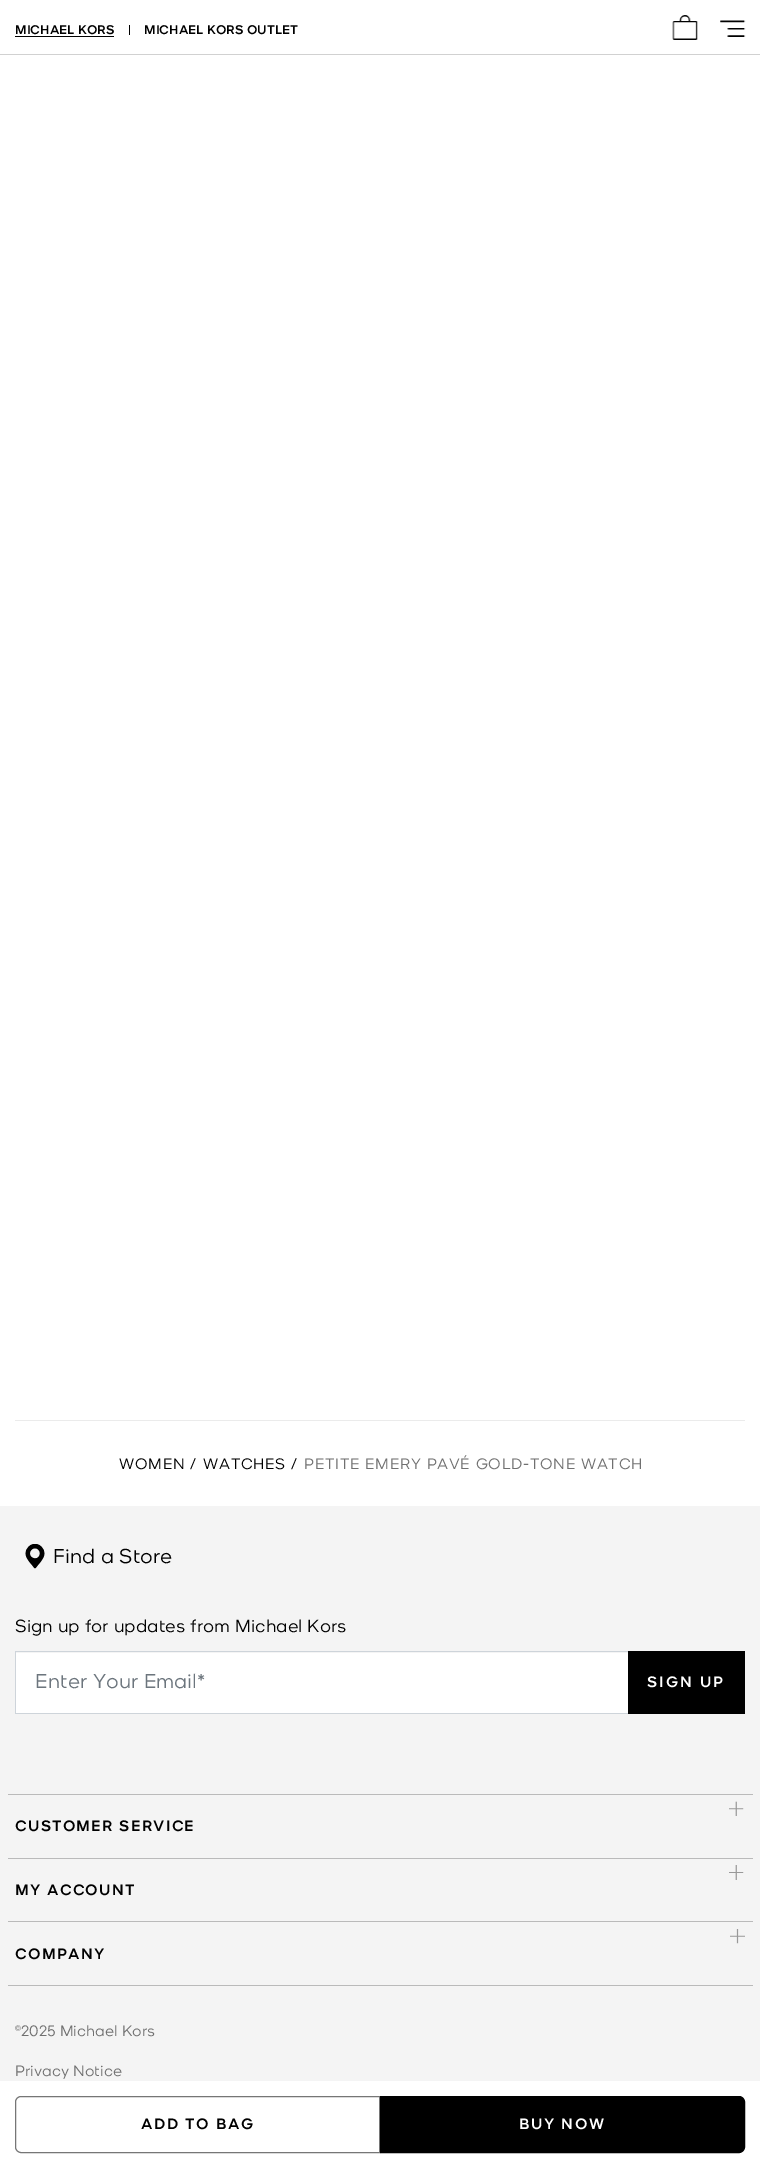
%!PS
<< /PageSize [760 2167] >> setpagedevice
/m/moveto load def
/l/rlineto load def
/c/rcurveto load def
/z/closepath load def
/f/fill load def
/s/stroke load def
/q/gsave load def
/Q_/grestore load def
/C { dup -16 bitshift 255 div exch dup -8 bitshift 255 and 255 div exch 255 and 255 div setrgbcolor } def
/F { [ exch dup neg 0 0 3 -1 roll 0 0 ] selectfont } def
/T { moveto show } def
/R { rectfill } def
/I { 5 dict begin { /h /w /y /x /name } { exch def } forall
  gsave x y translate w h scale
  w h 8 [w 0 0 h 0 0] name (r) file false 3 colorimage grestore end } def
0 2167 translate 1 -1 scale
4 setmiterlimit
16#FFFFFF C
0 0 760 2167 R
16#D1D1D1 C
0 54 760 1 R
/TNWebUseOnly-Medium 12.5 F
16#000000 C
(MICHAEL KORS) 15 34 T
15 36 99 1 R
129 25 1 10 R
(MICHAEL KORS OUTLET) 144 34 T
(1.rgb) 672 15 26 25 I
(2.rgb) 720 20 26 17 I
16#EBEBEB C
15 1420 730 1 R
/TNWebUseOnly-Light 15 F
16#000000 C
119 1469 m .75 0 (WOMEN /) ashow
203 1469 m .75 0 (WATCHES /) ashow
16#707070 C
304 1469 m .75 0 (PETITE EMERY PAVÉ GOLD-TONE WATCH) ashow
16#767676 C
21 2096.5 m 358.5 0 l 0 56 l -358.5 0 l -3 0 -5.5 -2.5 -5.5 -5.5 c 0 -45 l 0 -3 2.5 -5.5 5.5 -5.5 c z s
/TNWebUseOnly-Medium 15 F
16#000000 C
141 2129 m 1.5 0 (ADD TO BAG) ashow
380.5 2096.5 m 358.5 0 l 3 0 5.5 2.5 5.5 5.5 c 0 45 l 0 3 -2.5 5.5 -5.5 5.5 c -358.5 0 l z q f Q_
s
16#FFFFFF C
519 2129 m 1.5 0 (BUY NOW) ashow
16#F4F4F4 C
0 1506 760 575 R
16#BABABA C
8 1794 745 1 R
(3.rgb) 25 1544 20 25 I
/TNWebUseOnly-Light 20 F
16#000000 C
(Find a Store) 53 1563 T
/TNWebUseOnly-Light 17.5 F
(Sign up for updates from Michael Kors) 15 1632 T
16#FFFFFF C
16 1653 612 60 R
16#CED4DA C
15 1651 613 1 R
15 1713 613 1 R
15 1651 1 63 R
/TNWebUseOnly-Light 20 F
16#6C757D C
(Enter Your Email*) 35 1688 T
16#000000 C
628 1651 117 63 R
/TNWebUseOnly-Medium 15 F
16#FFFFFF C
647 1687 m 2 0 (SIGN UP) ashow
16#BABABA C
8 1985 745 1 R
8 1858 745 1 R
(4.rgb) 729 1801 15 15 I
16#000000 C
15 1831 m 1.25 0 (CUSTOMER SERVICE) ashow
16#BABABA C
8 1921 745 1 R
(5.rgb) 729 1865 15 15 I
16#000000 C
15 1895 m 1.25 0 (MY ACCOUNT) ashow
(6.rgb) 730 1929 15 15 I
15 1959 m 1.25 0 (COMPANY) ashow
/TNWebUseOnly-Light 15 F
16#707070 C
(©2025 Michael Kors) 15 2036 T
(Privacy Notice) 15 2076 T
showpage
